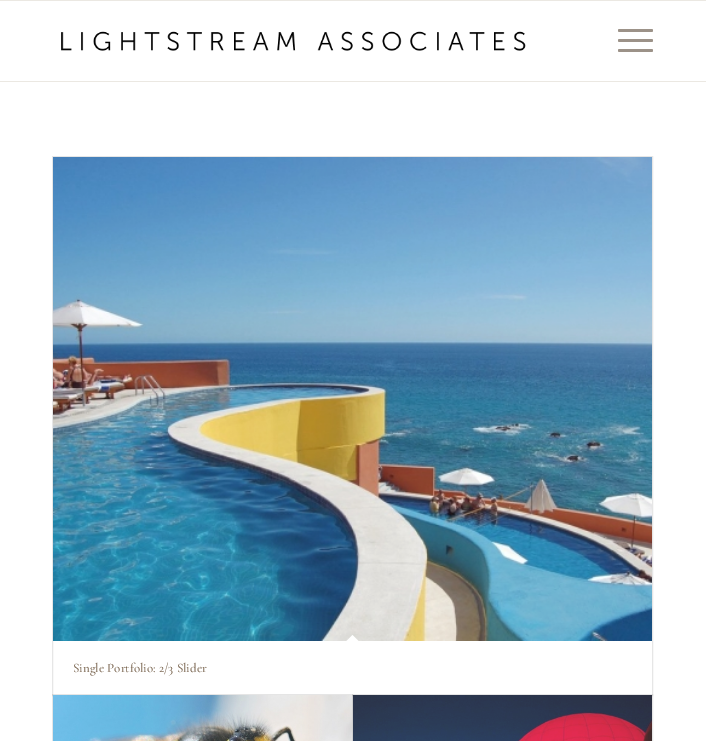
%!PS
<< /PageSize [706 741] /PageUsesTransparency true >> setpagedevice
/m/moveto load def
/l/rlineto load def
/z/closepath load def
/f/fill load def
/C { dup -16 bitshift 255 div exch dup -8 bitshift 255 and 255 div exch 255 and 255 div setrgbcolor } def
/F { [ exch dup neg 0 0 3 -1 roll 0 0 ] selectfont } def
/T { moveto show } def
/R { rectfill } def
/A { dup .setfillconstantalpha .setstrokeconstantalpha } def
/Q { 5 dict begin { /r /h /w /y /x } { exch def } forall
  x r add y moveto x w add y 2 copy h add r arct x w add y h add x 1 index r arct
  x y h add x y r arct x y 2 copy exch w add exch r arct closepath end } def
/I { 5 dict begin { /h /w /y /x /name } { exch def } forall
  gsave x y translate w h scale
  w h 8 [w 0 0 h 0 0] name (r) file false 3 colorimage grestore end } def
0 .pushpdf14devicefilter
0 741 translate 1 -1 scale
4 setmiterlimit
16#FFFFFF C
0 0 706 741 R
16#EBE8E2 C
0 0 706 1 R
0 81 706 1 R
(1.rgb) 61 31 465 20 I
16#9C9288 C
618 39 35 3 1.5 Q f
618 29 35 3 1.5 Q f
618 49 35 3 1.5 Q f
16#E6E6E6 C
52.5 156.5 600 539 rectstroke
(2.rgb) 53 157 599 484 I
16#FFFFFF C
352.5 635 m 7 7 l -7 7 l -7 -7 l z f
/Cormorant-Medium 13 F
16#7C6853 C
(Single Portfolio: 2/3 Slider) 73 672 T
0.1 A
16#000000 C
52.5 694.5 300 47 rectstroke
1 A
(3.rgb) 53 695 299 46 I
0.1 A
352.5 694.5 300 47 rectstroke
1 A
(4.rgb) 353 695 299 46 I
.poppdf14devicefilter showpage
